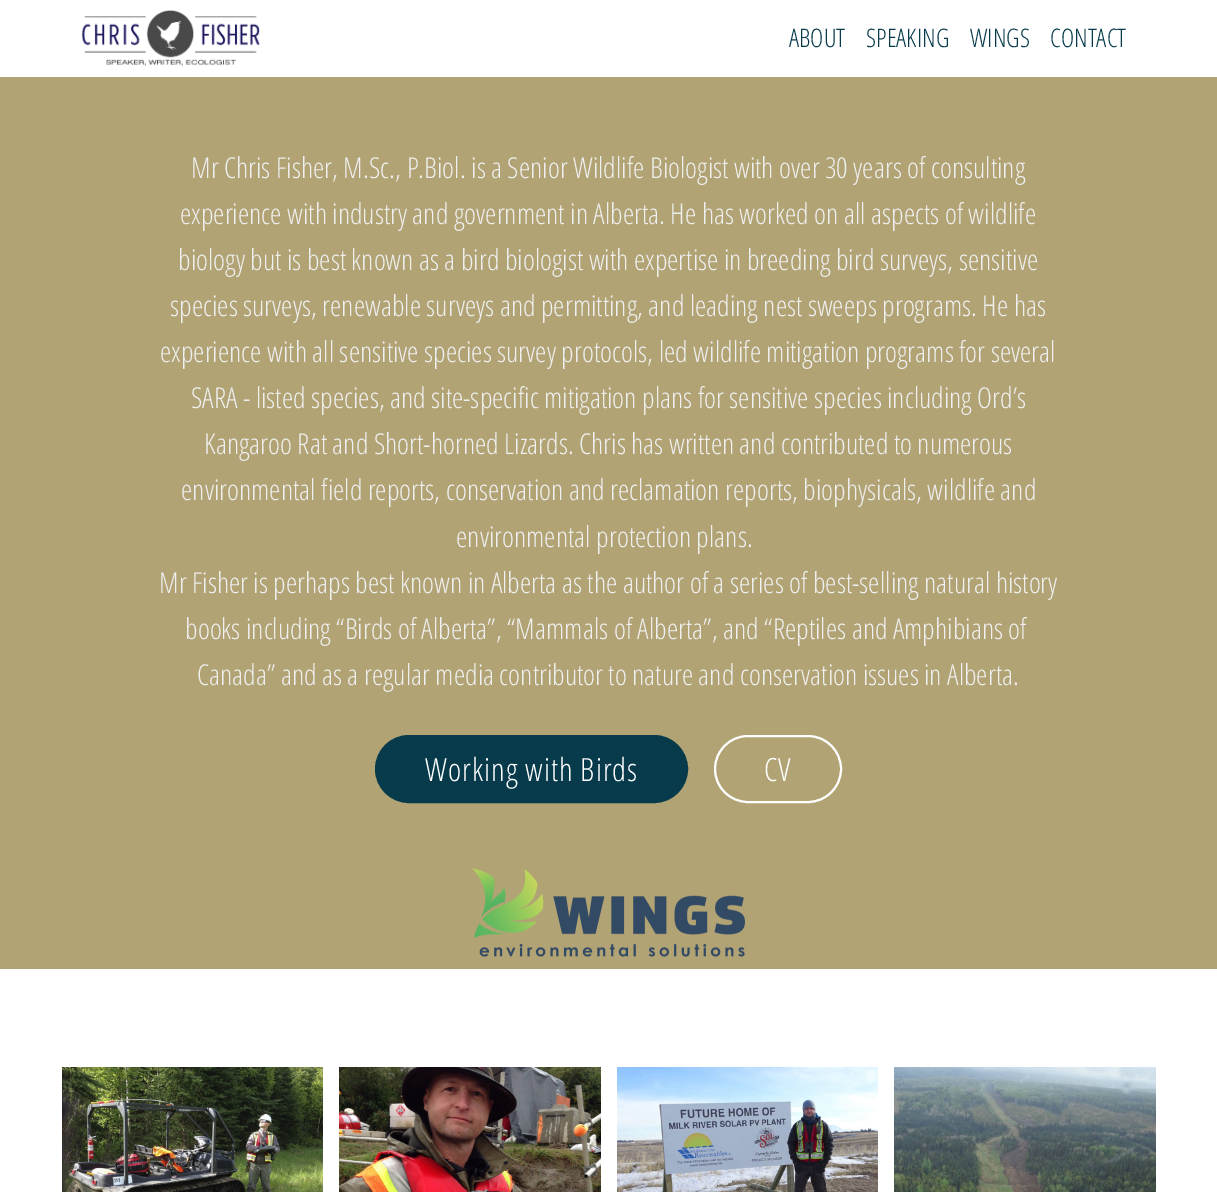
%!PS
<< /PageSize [1217 1192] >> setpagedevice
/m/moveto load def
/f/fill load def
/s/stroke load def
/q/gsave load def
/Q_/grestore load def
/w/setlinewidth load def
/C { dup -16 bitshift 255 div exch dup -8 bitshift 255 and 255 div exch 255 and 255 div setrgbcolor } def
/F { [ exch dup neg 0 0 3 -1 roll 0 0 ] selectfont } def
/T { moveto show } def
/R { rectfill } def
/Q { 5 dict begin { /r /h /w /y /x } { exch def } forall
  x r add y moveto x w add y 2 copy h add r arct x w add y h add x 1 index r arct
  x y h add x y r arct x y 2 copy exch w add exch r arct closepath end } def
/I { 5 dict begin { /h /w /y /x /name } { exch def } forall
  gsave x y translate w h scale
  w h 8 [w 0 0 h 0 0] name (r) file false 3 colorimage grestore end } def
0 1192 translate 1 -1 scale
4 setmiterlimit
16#FFFFFF C
0 0 1217 1192 R
(1.rgb) 81 10 179 56 I
/OpenSansCondensed-Light 25.5 F
16#073B4C C
(ABOUT) 789 47 T
(SPEAKING) 866 47 T
(WINGS) 970 47 T
(CONTACT) 1050 47 T
16#B1A374 C
0 77 1217 892 R
/OpenSansCondensed-Light 28.8 F
16#EFEFEF C
(Mr Chris Fisher, M.Sc., P.Biol. is a Senior Wildlife Biologist with over 30 years of consulting) 191 178 T
(experience with industry and government in Alberta. He has worked on all aspects of wildlife) 180 224 T
(biology but is best known as a bird biologist with expertise in breeding bird surveys, sensitive) 178 270 T
(species surveys, renewable surveys and permitting, and leading nest sweeps programs. He has) 170 316 T
(experience with all sensitive species survey protocols, led wildlife mitigation programs for several) 160 362 T
(SARA - listed species, and site-specific mitigation plans for sensitive species including Ord’s) 191 408 T
(Kangaroo Rat and Short-horned Lizards. Chris has written and contributed to numerous) 204 454 T
(environmental field reports, conservation and reclamation reports, biophysicals, wildlife and) 181 500 T
(environmental protection plans.) 456 547 T
(Mr Fisher is perhaps best known in Alberta as the author of a series of best-selling natural history) 159 593 T
(books including “Birds of Alberta”, “Mammals of Alberta”, and “Reptiles and Amphibians of) 185 639 T
(Canada” and as a regular media contributor to nature and conservation issues in Alberta.) 197 685 T
16#073B4C C
376 736 311 66 33 Q q f Q_
2 w
s
/OpenSansCondensed-Light 32 F
16#FFFFFF C
425 781 m 1 0 (Working with Birds) ashow
715 736 126 66 33 Q s
764 781 m 1 0 (CV) ashow
(2.rgb) 472 868 273 89 I
(3.rgb) 62 1067 261 125 I
(4.rgb) 339 1067 262 125 I
(5.rgb) 617 1067 261 125 I
(6.rgb) 894 1067 262 125 I
showpage
